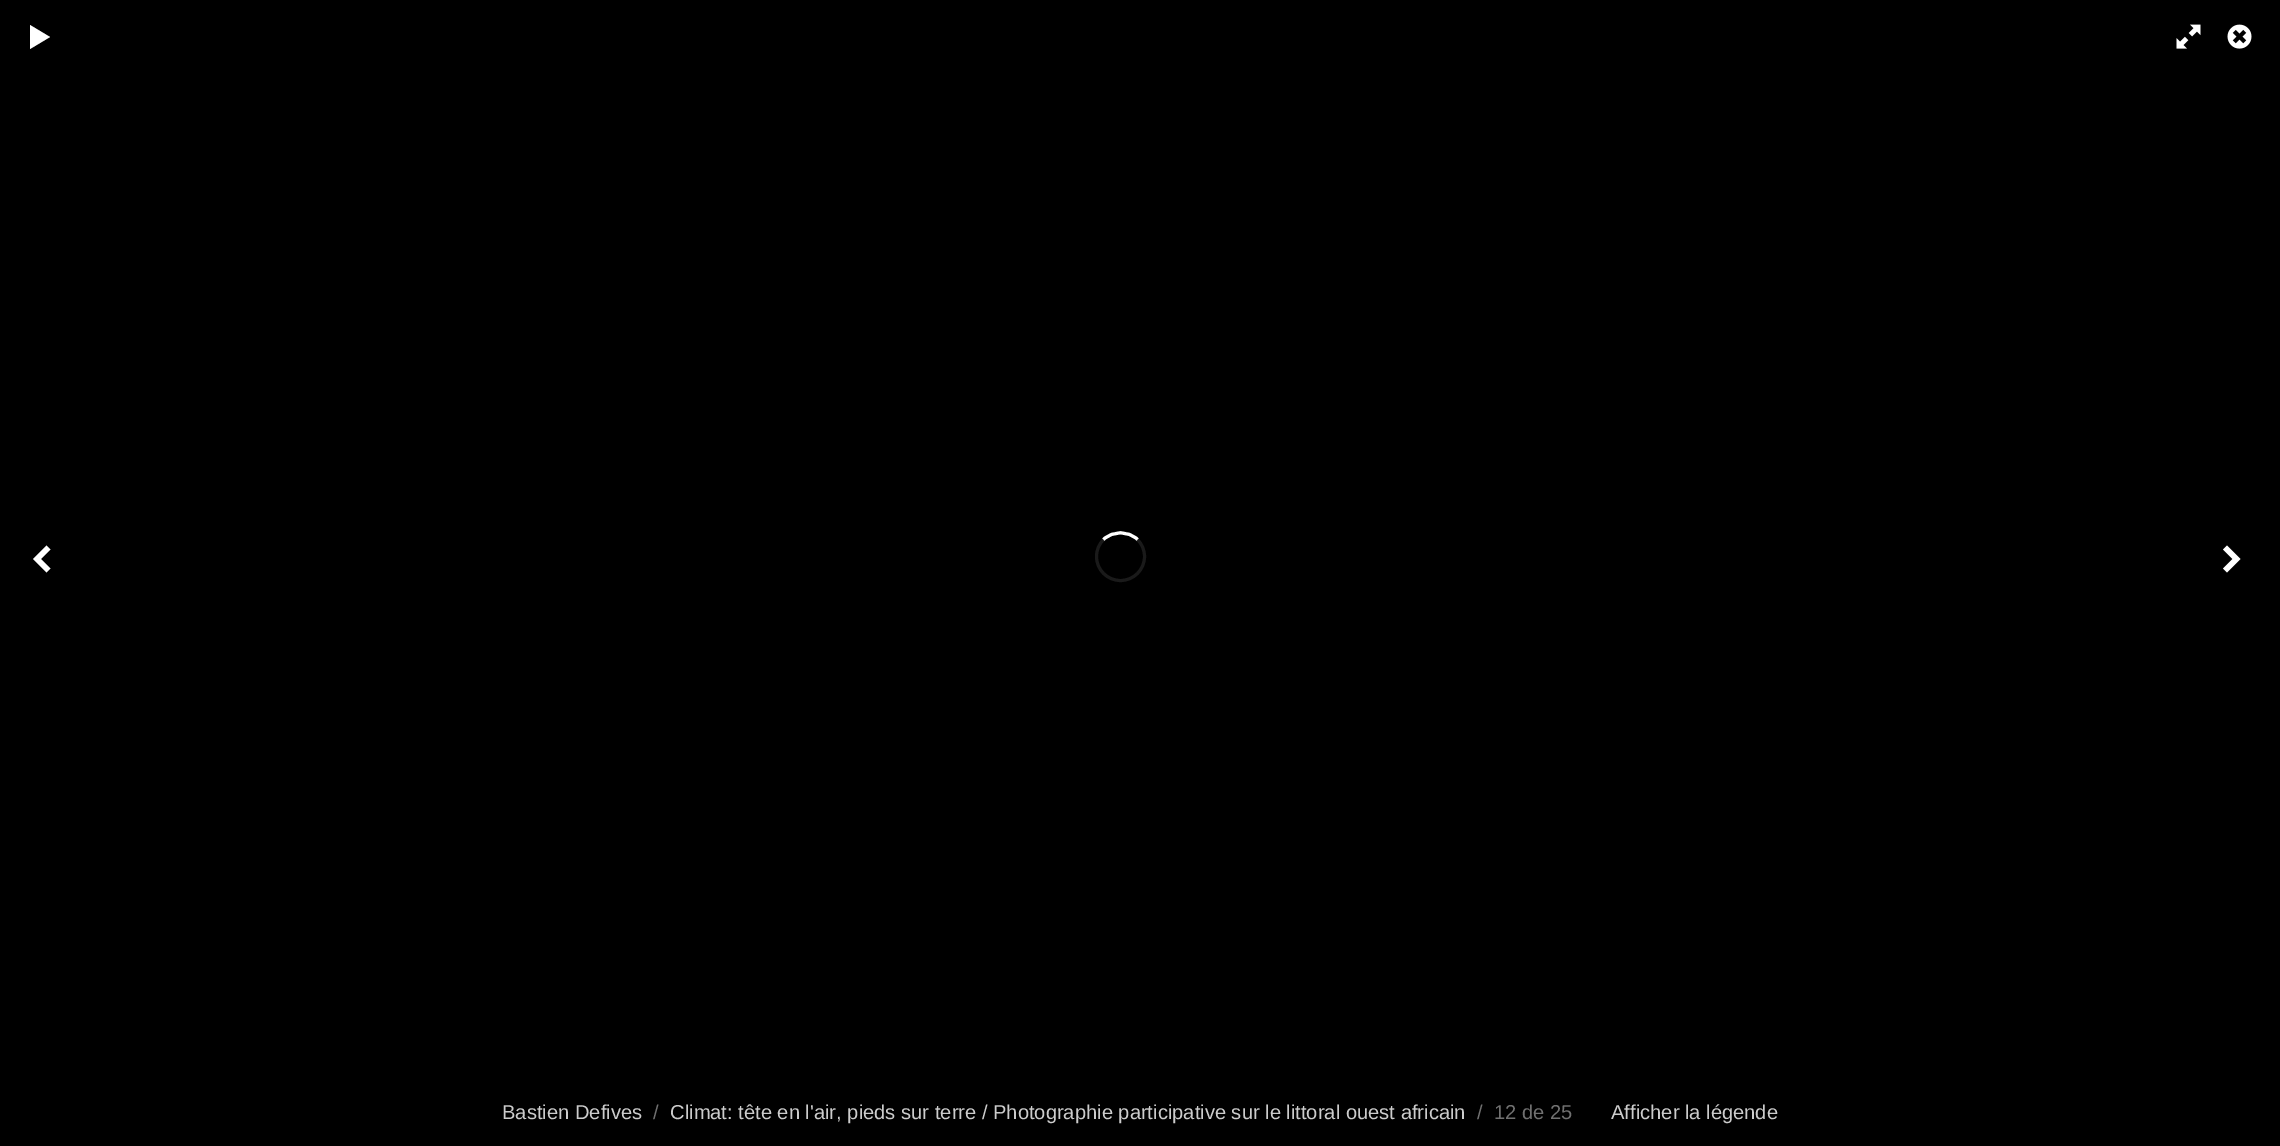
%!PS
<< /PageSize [2280 1146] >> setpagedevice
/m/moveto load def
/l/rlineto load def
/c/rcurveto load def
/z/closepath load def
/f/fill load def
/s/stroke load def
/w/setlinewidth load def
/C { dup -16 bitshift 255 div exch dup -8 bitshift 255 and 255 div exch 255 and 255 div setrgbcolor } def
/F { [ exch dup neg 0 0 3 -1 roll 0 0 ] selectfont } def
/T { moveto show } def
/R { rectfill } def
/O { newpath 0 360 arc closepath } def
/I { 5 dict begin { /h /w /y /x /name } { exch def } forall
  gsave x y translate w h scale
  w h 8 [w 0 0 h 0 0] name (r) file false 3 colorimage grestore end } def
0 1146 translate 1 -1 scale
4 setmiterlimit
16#000000 C
0 0 2280 1146 R
16#FFFFFF C
30 49 m 0 -24 l 20 12 l z f
(1.rgb) 2176 24 25 25 I
(2.rgb) 2227 24 25 25 I
33 559 m 13.5 -13.5 l 4 4 l -9.5 9.5 l 9.5 9.5 l -4 4 l z f
16#1A1A1A C
3 w
1120.5 556.5 24 O s
16#FFFFFF C
1103.5 539.5 m 9.5 -9 24.5 -9 34 0 c s
2223 568.5 m 9.5 -9.5 l -9.5 -9.5 l 4 -4 l 13.5 13.5 l -13.5 13.5 l z f
/LiberationSans-Regular 20.15 F
16#CCCCCC C
(Bastien Defives) 502 1119 T
16#707070 C
(/) 653 1119 T
16#CCCCCC C
(Climat: tête en l'air, pieds sur terre / Photographie participative sur le littoral ouest africain) 670 1119 T
16#707070 C
(/  12 de 25) 1477 1119 T
16#CCCCCC C
(Afficher la légende) 1611 1119 T
showpage
